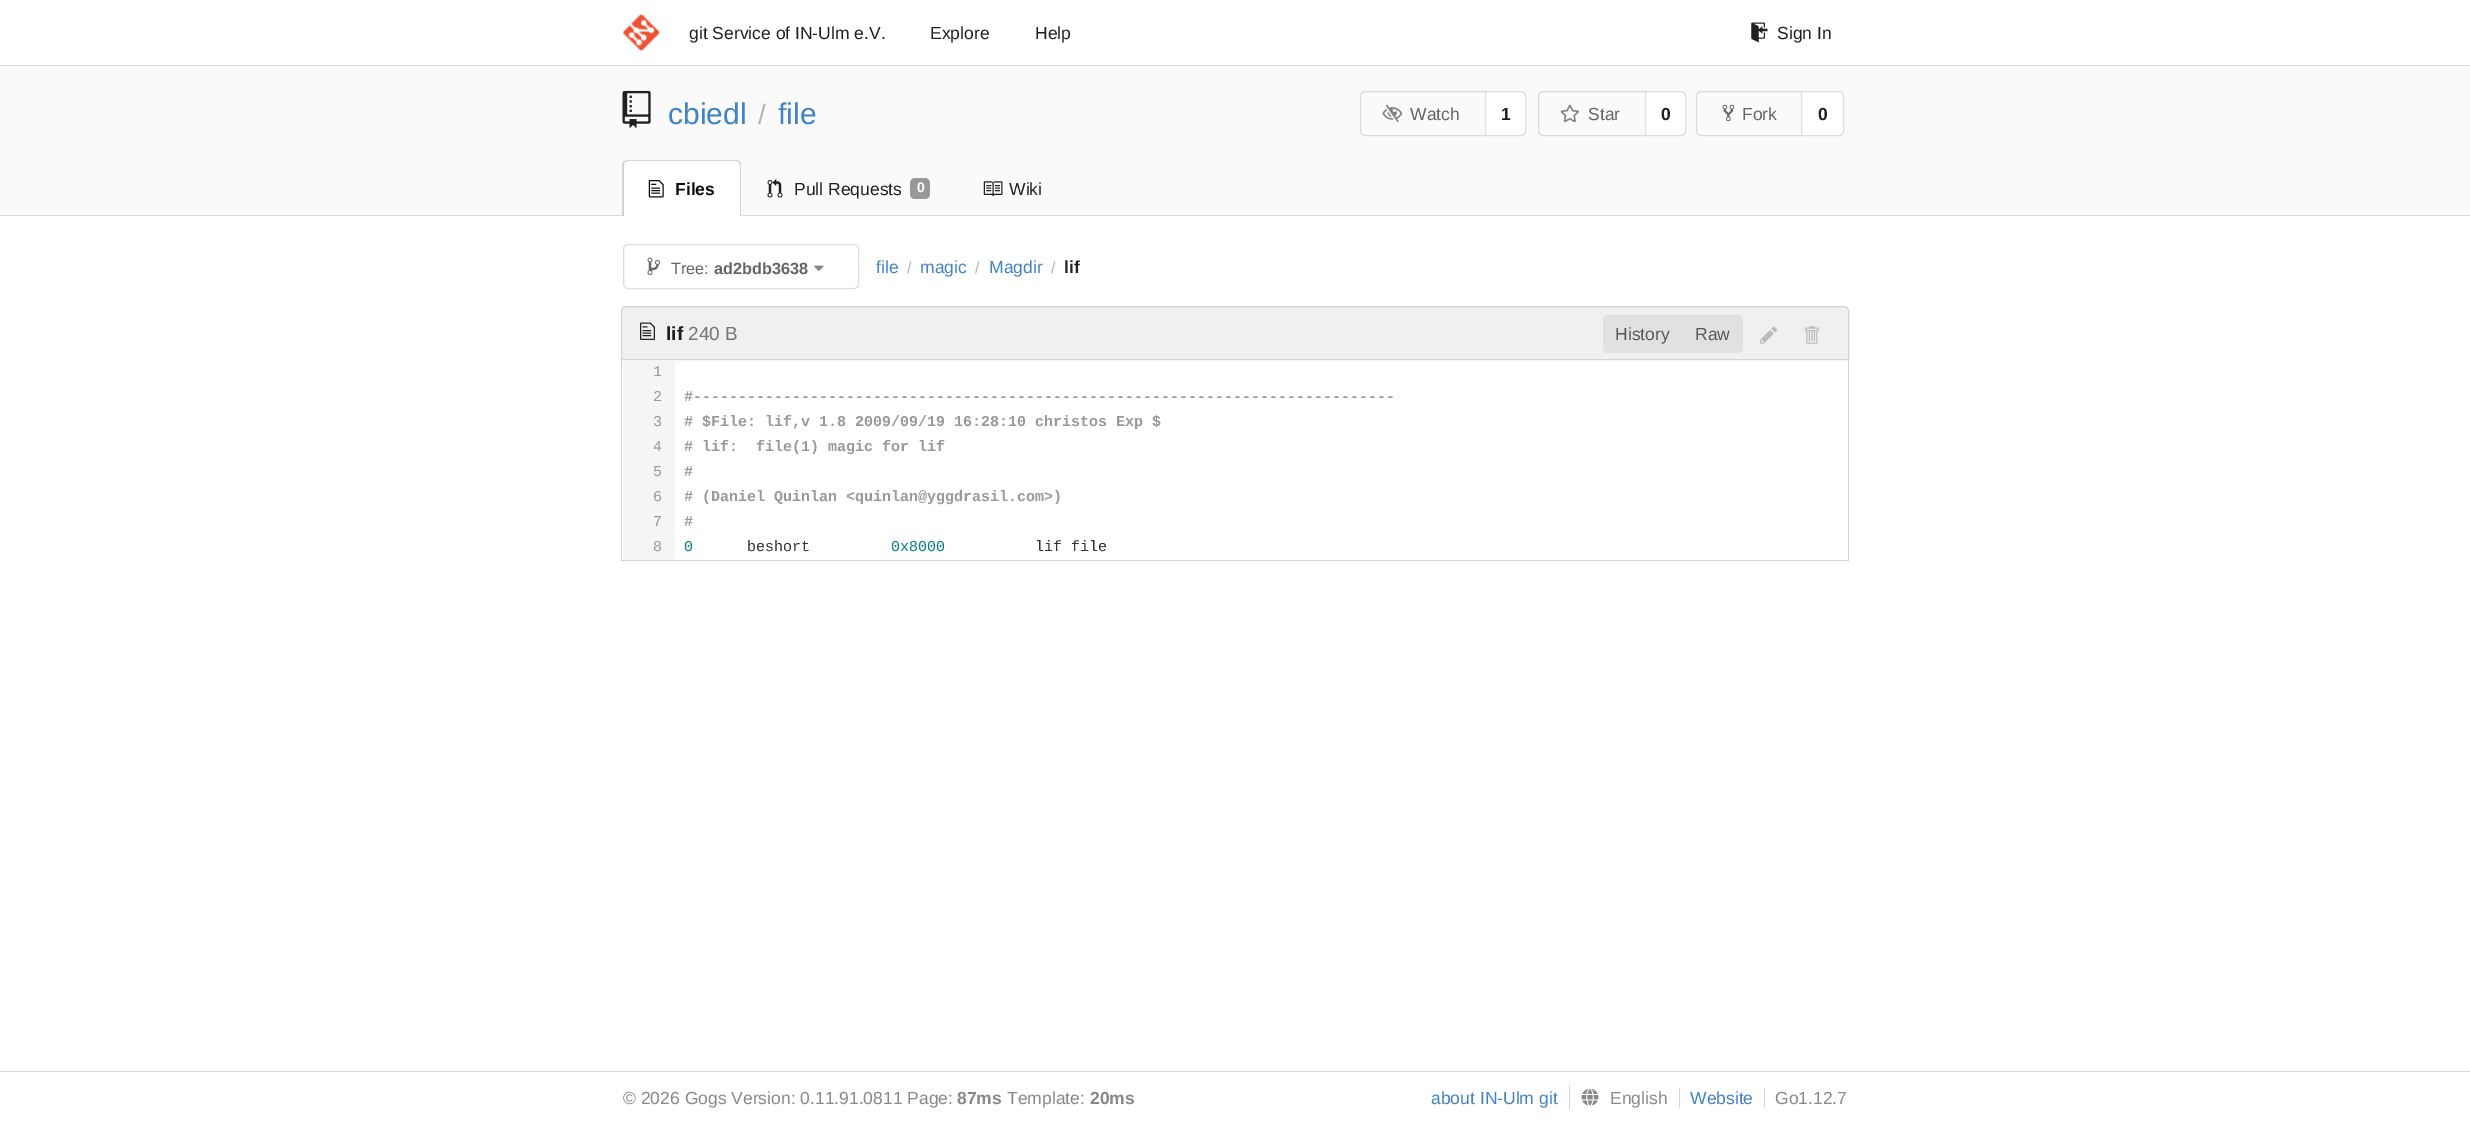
%!PS
<< /PageSize [2470 1121] >> setpagedevice
/m/moveto load def
/l/rlineto load def
/c/rcurveto load def
/z/closepath load def
/f/fill load def
/s/stroke load def
/q/gsave load def
/Q_/grestore load def
/C { dup -16 bitshift 255 div exch dup -8 bitshift 255 and 255 div exch 255 and 255 div setrgbcolor } def
/F { [ exch dup neg 0 0 3 -1 roll 0 0 ] selectfont } def
/T { moveto show } def
/R { rectfill } def
/Q { 5 dict begin { /r /h /w /y /x } { exch def } forall
  x r add y moveto x w add y 2 copy h add r arct x w add y h add x 1 index r arct
  x y h add x y r arct x y 2 copy exch w add exch r arct closepath end } def
/I { 5 dict begin { /h /w /y /x /name } { exch def } forall
  gsave x y translate w h scale
  w h 8 [w 0 0 h 0 0] name (r) file false 3 colorimage grestore end } def
0 1121 translate 1 -1 scale
4 setmiterlimit
16#FFFFFF C
0 0 2470 1121 R
16#DDDDDD C
0 65 2470 1 R
(1.rgb) 623 14 37 37 I
/LiberationSans-Regular 17.5 F
16#1F1F1F C
(git Service of IN-Ulm e.V.) 689 39 T
(Explore) 930 39 T
(Help) 1035 39 T
(2.rgb) 1751 22 17 21 I
(Sign In) 1777 39 T
16#FAFAFA C
0 66 2470 149 R
(3.rgb) 622 90 29 39 I
/LiberationSans-Regular 30 F
16#4183C4 C
(cbiedl) 668 124 T
/LiberationSans-Regular 28 F
16#B4B4B4 C
(/) 758 124 T
/LiberationSans-Regular 30 F
16#4183C4 C
(file) 778 124 T
16#DADADA C
1365 91.5 m 120.5 0 l 0 44 l -120.5 0 l -2.5 0 -4.5 -2 -4.5 -4.5 c 0 -35 l 0 -2.5 2 -4.5 4.5 -4.5 c z s
(4.rgb) 1382 104 21 19 I
/LiberationSans-Regular 17.5 F
16#646464 C
(Watch) 1410 120 T
16#FFFFFF C
1485.5 91.5 m 35.5 0 l 2.5 0 4.5 2 4.5 4.5 c 0 35 l 0 2.5 -2 4.5 -4.5 4.5 c -35.5 0 l z q f Q_
16#DEDEDE C
s
/LiberationSans-Bold 17.5 F
16#1F1F1F C
(1) 1501 120 T
16#DADADA C
1543 91.5 m 102.5 0 l 0 44 l -102.5 0 l -2.5 0 -4.5 -2 -4.5 -4.5 c 0 -35 l 0 -2.5 2 -4.5 4.5 -4.5 c z s
(5.rgb) 1560 104 19 19 I
/LiberationSans-Regular 17.5 F
16#646464 C
(Star) 1588 120 T
16#FFFFFF C
1645.5 91.5 m 35.5 0 l 2.5 0 4.5 2 4.5 4.5 c 0 35 l 0 2.5 -2 4.5 -4.5 4.5 c -35.5 0 l z q f Q_
16#DEDEDE C
s
/LiberationSans-Bold 17.5 F
16#1F1F1F C
(0) 1661 120 T
16#DADADA C
1701 91.5 m 101.5 0 l 0 44 l -101.5 0 l -2.5 0 -4.5 -2 -4.5 -4.5 c 0 -35 l 0 -2.5 2 -4.5 4.5 -4.5 c z s
(6.rgb) 1722 104 13 18 I
/LiberationSans-Regular 17.5 F
16#646464 C
(Fork) 1742 120 T
16#FFFFFF C
1801.5 91.5 m 37.5 0 l 2.5 0 4.5 2 4.5 4.5 c 0 35 l 0 2.5 -2 4.5 -4.5 4.5 c -37.5 0 l z q f Q_
16#DEDEDE C
s
/LiberationSans-Bold 17.5 F
16#1F1F1F C
(0) 1818 120 T
16#DADADA C
0 215 2470 1 R
16#FFFFFF C
628 160 m 108 0 l 3 0 5 2 5 5 c 0 51 l -118 0 l 0 -51 l 0 -3 2 -5 5 -5 c z f
16#D4D4D5 C
628 160 m 108 0 l 3 0 5 2 5 5 c 0 51 l -119 0 l 0 -51 l 0 -3 3 -5 6 -5 c z 628 161 m 108 0 l 2 0 4 2 4 4 c 0 51 l -116 0 l 0 -51 l 0 -2 1 -4 4 -4 c z eofill
(7.rgb) 648 180 16 18 I
16#0D0D0D C
(Files) 675 195 T
(8.rgb) 767 178 16 20 I
/LiberationSans-Regular 17.5 F
16#1F1F1F C
(Pull Requests) 794 195 T
16#999999 C
910 178 20 21 5 Q f
/LiberationSans-Bold 14 F
16#FFFFFF C
(0) 917 192 T
(9.rgb) 983 181 20 16 I
/LiberationSans-Regular 17.5 F
16#1F1F1F C
(Wiki) 1009 195 T
16#DEDEDE C
623.5 244.5 235 44 4.5 Q s
(10.rgb) 647 257 13 18 I
/LiberationSans-Regular 16.25 F
16#646464 C
(Tree:) 671 274 T
/LiberationSans-Bold 16.25 F
(ad2bdb3638) 714 274 T
(11.rgb) 814 265 10 6 I
/LiberationSans-Regular 17.5 F
16#4183C4 C
(file) 876 273 T
/LiberationSans-Regular 16.25 F
16#B4B4B4 C
(/) 907 273 T
/LiberationSans-Regular 17.5 F
16#4183C4 C
(magic) 920 273 T
/LiberationSans-Regular 16.25 F
16#B4B4B4 C
(/) 975 273 T
/LiberationSans-Regular 17.5 F
16#4183C4 C
(Magdir) 989 273 T
/LiberationSans-Regular 16.25 F
16#B4B4B4 C
(/) 1051 273 T
/LiberationSans-Bold 17.5 F
16#1F1F1F C
(lif) 1064 273 T
16#F0F0F0 C
626 306.5 m 1218 0 l 2.5 0 4.5 2 4.5 4.5 c 0 48.5 l -1227 0 l 0 -48.5 l 0 -2.5 2 -4.5 4.5 -4.5 c z q f Q_
16#D4D4D5 C
s
(12.rgb) 640 322 15 18 I
/LiberationSans-Bold 19 F
16#1F1F1F C
(lif) 666 340 T
/LiberationSans-Regular 19 F
16#767676 C
(240 B) 688 340 T
16#E0E1E2 C
1608 315 m 75 0 l 0 38 l -75 0 l -3 0 -5 -2 -5 -5 c 0 -28 l 0 -3 2 -5 5 -5 c z f
/LiberationSans-Regular 17.5 F
16#5A5A5A C
(History) 1615 340 T
16#E0E1E2 C
1683 315 m 55 0 l 3 0 5 2 5 5 c 0 28 l 0 3 -2 5 -5 5 c -55 0 l z f
16#5A5A5A C
(Raw) 1695 340 T
(13.rgb) 1760 326 17 18 I
(14.rgb) 1805 326 14 18 I
16#D4D4D5 C
1848 360 1 201 R
621 560 1228 1 R
621 360 1 201 R
16#F5F5F5 C
623 360 52 200 R
/LiberationMono-Regular 15 F
16#999999 C
(1) 653 376 T
(2) 653 401 T
(3) 653 426 T
(4) 653 451 T
(5) 653 476 T
(6) 653 501 T
(7) 653 526 T
(8) 653 551 T
/LiberationMono-Bold 15 F
(#------------------------------------------------------------------------------) 684 401 T
(# $File: lif,v 1.8 2009/09/19 16:28:10 christos Exp $) 684 426 T
(# lif:  file\(1\) magic for lif) 684 451 T
(#) 684 476 T
(# \(Daniel Quinlan <quinlan@yggdrasil.com>\)) 684 501 T
(#) 684 526 T
/LiberationMono-Regular 15 F
16#008080 C
(0) 684 551 T
16#333333 C
(beshort) 747 551 T
16#008080 C
(0x8000) 891 551 T
16#333333 C
(lif file) 1035 551 T
16#D6D6D6 C
0 1071 2470 1 R
/LiberationSans-Regular 17.5 F
16#888888 C
(© 2026 Gogs Version: 0.11.91.0811 Page:) 623 1104 T
/LiberationSans-Bold 17.5 F
(87ms) 957 1104 T
/LiberationSans-Regular 17.5 F
(Template:) 1007 1104 T
/LiberationSans-Bold 17.5 F
(20ms) 1090 1104 T
/LiberationSans-Regular 17.5 F
16#4183C4 C
(about IN-Ulm git) 1431 1104 T
16#D6D6D6 C
1569 1085 1 25 R
(15.rgb) 1581 1088 18 18 I
16#888888 C
(English) 1610 1104 T
16#4183C4 C
(Website) 1690 1104 T
16#D6D6D6 C
1679 1088 1 20 R
16#888888 C
(Go1.12.7) 1775 1104 T
16#D6D6D6 C
1764 1088 1 20 R
showpage
